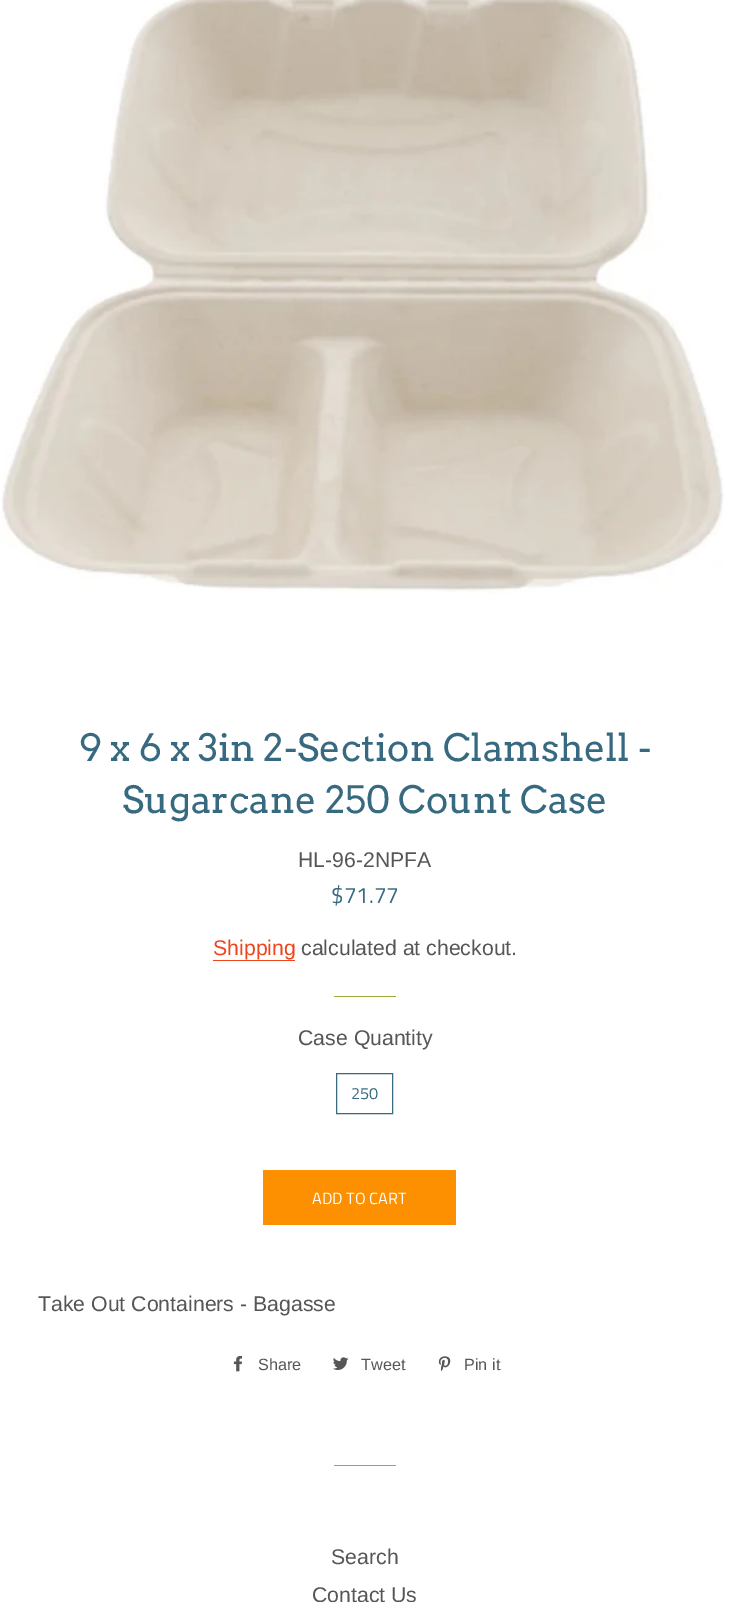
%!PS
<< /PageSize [730 1602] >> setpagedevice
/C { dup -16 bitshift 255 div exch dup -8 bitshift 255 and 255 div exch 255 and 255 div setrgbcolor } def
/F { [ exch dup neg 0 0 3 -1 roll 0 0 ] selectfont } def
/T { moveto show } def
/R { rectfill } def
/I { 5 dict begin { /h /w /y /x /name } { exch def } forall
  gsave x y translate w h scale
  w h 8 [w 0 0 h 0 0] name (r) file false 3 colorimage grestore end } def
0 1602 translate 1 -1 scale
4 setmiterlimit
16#FFFFFF C
0 0 730 1602 R
(1.rgb) 1 0 723 595 I
/Arvo-Regular 37.5 F
16#376A80 C
(9 x 6 x 3in 2-Section Clamshell -) 79 761 T
(Sugarcane 250 Count Case) 122 813 T
/LiberationSans-Regular 21.25 F
16#565656 C
(HL-96-2NPFA) 298 867 T
/TitilliumWeb-Regular 22.5 F
16#376A80 C
($71.77) 331 903 T
/LiberationSans-Regular 21.25 F
16#EF451D C
(Shipping) 213 955 T
213 960 82 1 R
16#565656 C
(calculated at checkout.) 301 955 T
16#95AC38 C
334 996 62 1 R
16#565656 C
(Case Quantity) 298 1045 T
16#376A80 C
336.5 1073.5 56 40 rectstroke
/TitilliumWeb-Regular 16.25 F
(250) 351 1099 T
16#FD9000 C
263 1170 193 55 R
16#FFFFFF C
(ADD TO CART) 312 1204 T
/LiberationSans-Regular 21.25 F
16#565656 C
(Take Out Containers - Bagasse) 38 1311 T
(2.rgb) 233 1356 10 16 I
/LiberationSans-Regular 16.25 F
(Share) 258 1370 T
(3.rgb) 333 1357 16 13 I
(Tweet) 361 1370 T
(4.rgb) 438 1356 13 16 I
(Pin it) 464 1370 T
16#95AC38 C
334 1465 62 1 R
/LiberationSans-Regular 21.25 F
16#565656 C
(Search) 331 1564 T
(Contact Us) 312 1602 T
showpage
